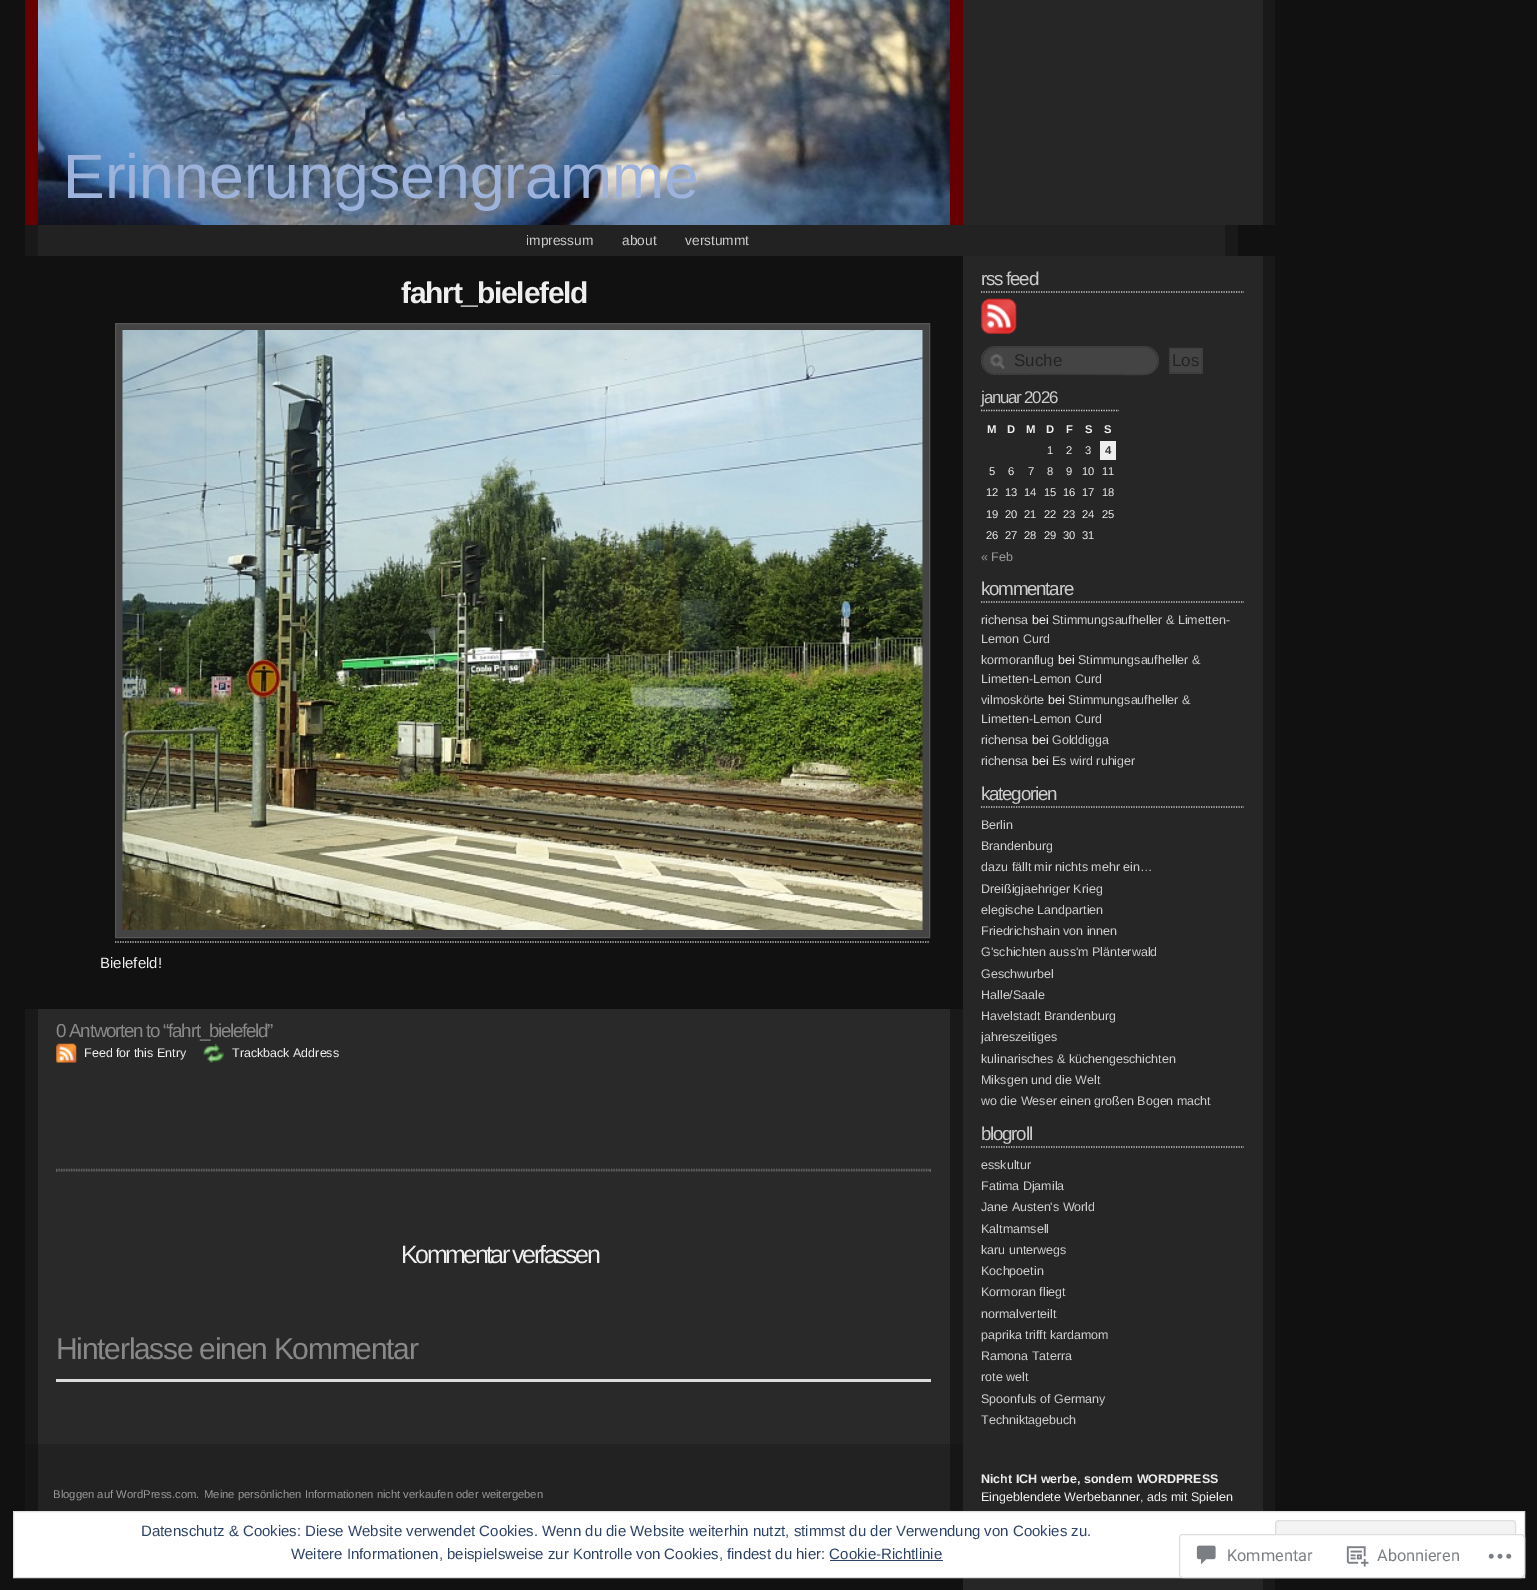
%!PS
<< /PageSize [1537 1590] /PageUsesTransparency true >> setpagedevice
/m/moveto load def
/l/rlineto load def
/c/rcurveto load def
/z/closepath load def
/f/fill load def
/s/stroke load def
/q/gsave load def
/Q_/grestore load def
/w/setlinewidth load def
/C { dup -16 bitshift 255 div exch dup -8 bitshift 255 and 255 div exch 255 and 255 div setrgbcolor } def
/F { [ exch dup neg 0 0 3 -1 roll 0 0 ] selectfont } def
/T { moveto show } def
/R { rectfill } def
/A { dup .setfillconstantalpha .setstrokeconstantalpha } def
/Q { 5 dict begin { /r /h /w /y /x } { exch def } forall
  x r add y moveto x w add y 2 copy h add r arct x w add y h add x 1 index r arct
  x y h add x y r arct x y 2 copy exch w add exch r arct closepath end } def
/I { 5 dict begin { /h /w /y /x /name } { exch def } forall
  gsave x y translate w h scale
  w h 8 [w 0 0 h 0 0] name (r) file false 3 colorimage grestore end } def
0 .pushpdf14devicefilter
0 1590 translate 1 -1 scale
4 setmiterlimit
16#111111 C
0 0 1537 1590 R
(1.rgb) 38 0 912 225 I
16#660000 C
950 0 13 225 R
25 0 13 225 R
/LiberationSans-Regular 62.5 F
16#9DB3DB C
(Erinnerungsengramme) 63 198 T
16#262626 C
963 0 300 225 R
16#191919 C
1263 0 12 225 R
16#222222 C
38 225 1187 31 R
16#191919 C
1225 225 13 31 R
25 225 13 31 R
/LiberationSans-Regular 13.75 F
16#CCCCCC C
(impressum) 526 245 T
(about) 622 245 T
(verstummt) 685 245 T
/LiberationSans-Bold 30 F
16#EEEEEE C
401 303 m -1.25 0 (fahrt_bielefeld) ashow
16#444444 C
115.5 323.5 m 814 0 l 0 614 l -814 0 l z q f Q_
16#555555 C
s
(2.rgb) 122 330 801 600 I
16#CCCCCC C
1.2 w
[1.25 1.25] 0 setdash
115 942 m 815 0 l s
/LiberationSans-Regular 15 F
16#EEEEEE C
(Bielefeld!) 100 968 T
16#292929 C
38 1009 912 435 R
16#191919 C
950 1009 13 435 R
25 1009 13 435 R
/LiberationSans-Regular 18.75 F
16#888888 C
56 1037 m -1.25 0 (0 Antworten to “fahrt_bielefeld”) ashow
(3.rgb) 56 1043 21 20 I
/LiberationSans-Regular 12.5 F
16#EEEEEE C
(Feed for this Entry) 84 1057 T
(4.rgb) 203 1043 21 20 I
(Trackback Address) 232 1057 T
16#363636 C
56 1169 875 3 R
16#606060 C
56 1169.5 m 875 0 l s
930 1169 1 3 R
56 1170.5 m 875 0 l s
56 1169 1 3 R
/LiberationSans-Regular 25 F
16#EEEEEE C
401 1263 m -2.5 0 (Kommentar verfassen) ashow
/LiberationSans-Regular 30 F
16#888888 C
56 1359 m -1.25 0 (Hinterlasse einen Kommentar) ashow
16#DCDCDE C
56 1379 875 3 R
16#262626 C
963 256 300 1334 R
16#191919 C
1263 256 12 1334 R
16#CCCCCC C
981 292 m 263 0 l s
/LiberationSans-Regular 18.75 F
981 285 m -1.25 0 (rss feed) ashow
(5.rgb) 981 298 36 36 I
16#444444 C
981 346 178 29 14.5 Q f
(6.rgb) 990 353 15 16 I
16#333333 C
995.5 347 m 151.5 0 l 13 3 15 21 2.5 26.5 c -7.5 3 -30 1 -30 1 c -126.5 -.5 l -16 -3 -13.5 -27 2.5 -27 c z s
/LiberationSans-Regular 17 F
16#222222 C
(Suche) 1014 366 T
16#444444 C
1169 348 34 26 R
16#333333 C
1169 348 m 33.5 0 l 1202 347.5 m 0 26.5 l 1169 373 m 33.5 0 l 1169.5 347.5 m 0 26.5 l s
16#222222 C
(Los) 1172 366 T
16#CCCCCC C
981 410.5 m 138 0 l s
981 403 m -1.25 0 (januar 2026) ashow
/LiberationSans-Bold 11.25 F
16#EEEEEE C
(M) 987 433 T
(D) 1007 433 T
(M) 1026 433 T
(D) 1046 433 T
(F) 1066 433 T
(S) 1085 433 T
(S) 1104 433 T
/LiberationSans-Regular 11.25 F
(1) 1047 454 T
(2) 1066 454 T
(3) 1085 454 T
1100 441 16 19 R
/LiberationSans-Bold 11.25 F
16#333333 C
(4) 1105 454 T
/LiberationSans-Regular 11.25 F
16#EEEEEE C
(5) 989 475 T
(6) 1008 475 T
(7) 1028 475 T
(8) 1047 475 T
(9) 1066 475 T
(10) 1082 475 T
(11) 1102 475 T
(12) 986 496 T
(13) 1005 496 T
(14) 1024 496 T
(15) 1044 496 T
(16) 1063 496 T
(17) 1082 496 T
(18) 1102 496 T
(19) 986 518 T
(20) 1005 518 T
(21) 1024 518 T
(22) 1044 518 T
(23) 1063 518 T
(24) 1082 518 T
(25) 1102 518 T
(26) 986 539 T
(27) 1005 539 T
(28) 1024 539 T
(29) 1044 539 T
(30) 1063 539 T
(31) 1082 539 T
/LiberationSans-Regular 12.5 F
16#999999 C
(« Feb) 981 561 T
16#CCCCCC C
981 602 m 263 0 l s
/LiberationSans-Regular 18.75 F
981 595 m -1.25 0 (kommentare) ashow
/LiberationSans-Regular 12.5 F
(richensa) 981 624 T
16#EEEEEE C
(bei) 1032 624 T
16#CCCCCC C
(Stimmungsaufheller & Limetten-) 1052 624 T
(Lemon Curd) 981 643 T
(kormoranflug) 981 664 T
16#EEEEEE C
(bei) 1058 664 T
16#CCCCCC C
(Stimmungsaufheller &) 1078 664 T
(Limetten-Lemon Curd) 981 683 T
(vilmoskörte) 981 704 T
16#EEEEEE C
(bei) 1048 704 T
16#CCCCCC C
(Stimmungsaufheller &) 1068 704 T
(Limetten-Lemon Curd) 981 723 T
(richensa) 981 744 T
16#EEEEEE C
(bei) 1032 744 T
16#CCCCCC C
(Golddigga) 1052 744 T
(richensa) 981 765 T
16#EEEEEE C
(bei) 1032 765 T
16#CCCCCC C
(Es wird ruhiger) 1052 765 T
981 807 m 263 0 l s
/LiberationSans-Regular 18.75 F
981 800 m -1.25 0 (kategorien) ashow
/LiberationSans-Regular 12.5 F
(Berlin) 981 829 T
(Brandenburg) 981 850 T
(dazu fällt mir nichts mehr ein…) 981 871 T
(Dreißigjaehriger Krieg) 981 893 T
(elegische Landpartien) 981 914 T
(Friedrichshain von innen) 981 935 T
(G'schichten auss'm Plänterwald) 981 956 T
(Geschwurbel) 981 978 T
(Halle/Saale) 981 999 T
(Havelstadt Brandenburg) 981 1020 T
(jahreszeitiges) 981 1041 T
(kulinarisches & küchengeschichten) 981 1063 T
(Miksgen und die Welt) 981 1084 T
(wo die Weser einen großen Bogen macht) 981 1105 T
981 1147 m 263 0 l s
/LiberationSans-Regular 18.75 F
981 1140 m -1.25 0 (blogroll) ashow
/LiberationSans-Regular 12.5 F
(esskultur) 981 1169 T
(Fatima Djamila) 981 1190 T
(Jane Austen's World) 981 1211 T
(Kaltmamsell) 981 1233 T
(karu unterwegs) 981 1254 T
(Kochpoetin) 981 1275 T
(Kormoran fliegt) 981 1296 T
(normalverteilt) 981 1318 T
(paprika trifft kardamom) 981 1339 T
(Ramona Taterra) 981 1360 T
(rote welt) 981 1381 T
(Spoonfuls of Germany) 981 1403 T
(Techniktagebuch) 981 1424 T
/LiberationSans-Bold 12.5 F
16#EEEEEE C
(Nicht ICH werbe, sondern WORDPRESS) 981 1483 T
/LiberationSans-Regular 12.5 F
(Eingeblendete Werbebanner, ads mit Spielen) 981 1501 T
16#222222 C
38 1444 912 67 R
16#161616 C
950 1444 13 67 R
25 1444 13 67 R
/LiberationSans-Regular 11.25 F
16#999999 C
(Bloggen auf WordPress.com.) 53 1498 T
(Meine persönlichen Informationen nicht verkaufen oder weitergeben) 204 1498 T
16#FFFFFF C
13.5 1511.5 m 1511 0 l 0 66 l -1511 0 l z q f Q_
16#DEDEDE C
1 w
[] 0 setdash
s
/LiberationSans-Regular 15 F
16#2E4467 C
(Datenschutz & Cookies: Diese Website verwendet Cookies. Wenn du die Website weiterhin nutzt, stimmst du der Verwendung von Cookies zu.) 141 1536 T
16#F3F3F3 C
1275.5 1520.5 240 48 3.5 Q q f Q_
16#DEDEDE C
s
16#2E4467 C
(Weitere Informationen, beispielsweise zur Kontrolle von Cookies, findest du hier: Cookie-Richtlinie) 291 1559 T
830 1560 113 1 R
0.98 A
16#FFFFFF C
1179 1534 346 44 4 Q f
16#DCDCDE C
1179.5 1534.5 345 43 3.5 Q s
1 A
(7.rgb) 1196 1545 20 20 I
/Roboto-Regular 16.25 F
16#7B7F84 C
(Kommentar) 1227 1561 T
(8.rgb) 1346 1546 23 21 I
(Abonnieren) 1377 1561 T
(9.rgb) 1488 1553 24 6 I
.poppdf14devicefilter showpage
